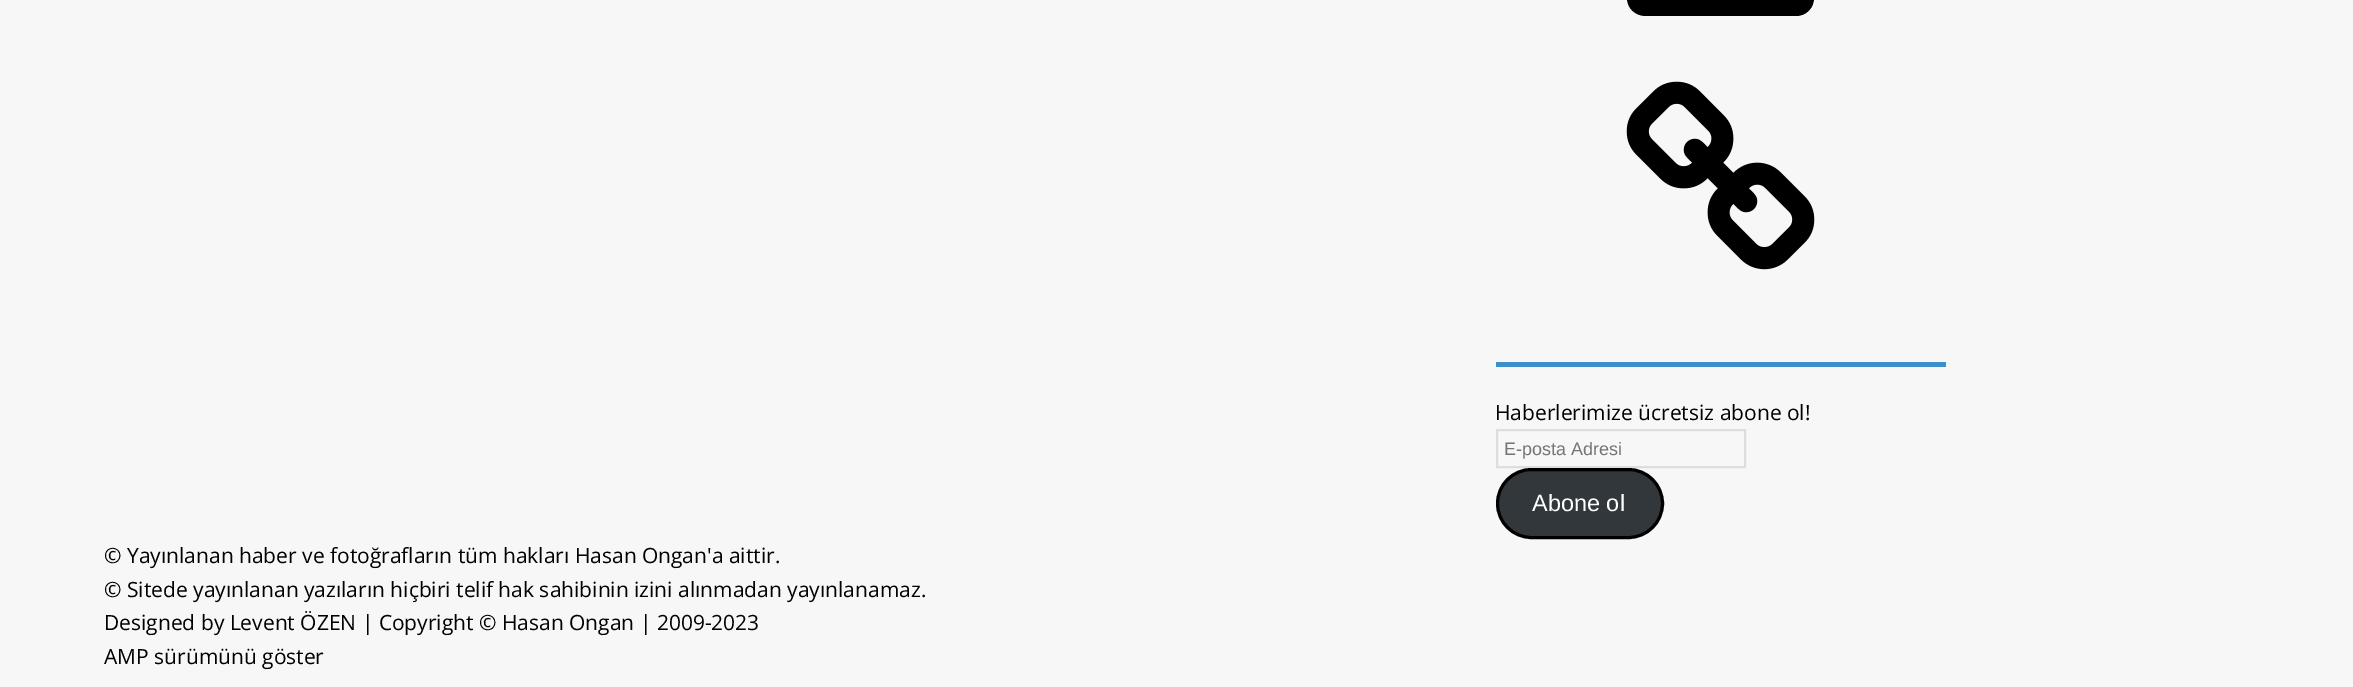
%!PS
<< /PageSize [2353 687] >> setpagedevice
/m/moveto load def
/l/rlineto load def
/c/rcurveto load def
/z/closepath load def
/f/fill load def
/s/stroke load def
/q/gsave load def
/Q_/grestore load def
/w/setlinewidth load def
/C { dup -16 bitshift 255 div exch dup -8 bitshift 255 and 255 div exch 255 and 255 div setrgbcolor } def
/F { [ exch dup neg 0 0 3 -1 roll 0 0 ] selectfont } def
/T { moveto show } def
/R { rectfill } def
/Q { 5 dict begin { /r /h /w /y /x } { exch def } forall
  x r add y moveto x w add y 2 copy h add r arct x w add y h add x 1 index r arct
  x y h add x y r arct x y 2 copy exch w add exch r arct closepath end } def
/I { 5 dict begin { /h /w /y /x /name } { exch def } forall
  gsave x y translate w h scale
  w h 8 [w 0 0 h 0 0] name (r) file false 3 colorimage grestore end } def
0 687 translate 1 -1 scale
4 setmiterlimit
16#F7F7F7 C
0 0 2353 687 R
16#000000 C
1796 -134 m -150 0 l -11 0 -19 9 -19 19 c 0 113 l 0 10 8 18 19 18 c 150 0 l 10 0 18 -8 18 -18 c 0 -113 l 0 -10 -8 -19 -18 -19 c z 1796 -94 m -76 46 l -74 -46 l 0 -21 l 150 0 l z f
(1.rgb) 1626 81 189 189 I
16#3D90CC C
1496 362 450 5 R
/OpenSans-Regular 21 F
16#000000 C
(Haberlerimize ücretsiz abone ol!) 1495 420 T
16#DDDDDD C
2 w
1497 430 248 37 rectstroke
/LiberationSans-Regular 18 F
16#757575 C
(E-posta Adresi) 1504 455 T
16#32373C C
1497.5 469.5 165 68 34 Q q f Q_
16#000000 C
3 w
s
/LiberationSans-Regular 23.5 F
16#FFFFFF C
(Abone ol) 1532 511 T
/OpenSans-Regular 21 F
16#000000 C
(© Yayınlanan haber ve fotoğrafların tüm hakları Hasan Ongan'a aittir.) 104 563 T
(© Sitede yayınlanan yazıların hiçbiri telif hak sahibinin izini alınmadan yayınlanamaz.) 104 597 T
(Designed by Levent ÖZEN | Copyright © Hasan Ongan | 2009-2023) 104 630 T
(AMP sürümünü göster) 104 664 T
showpage
